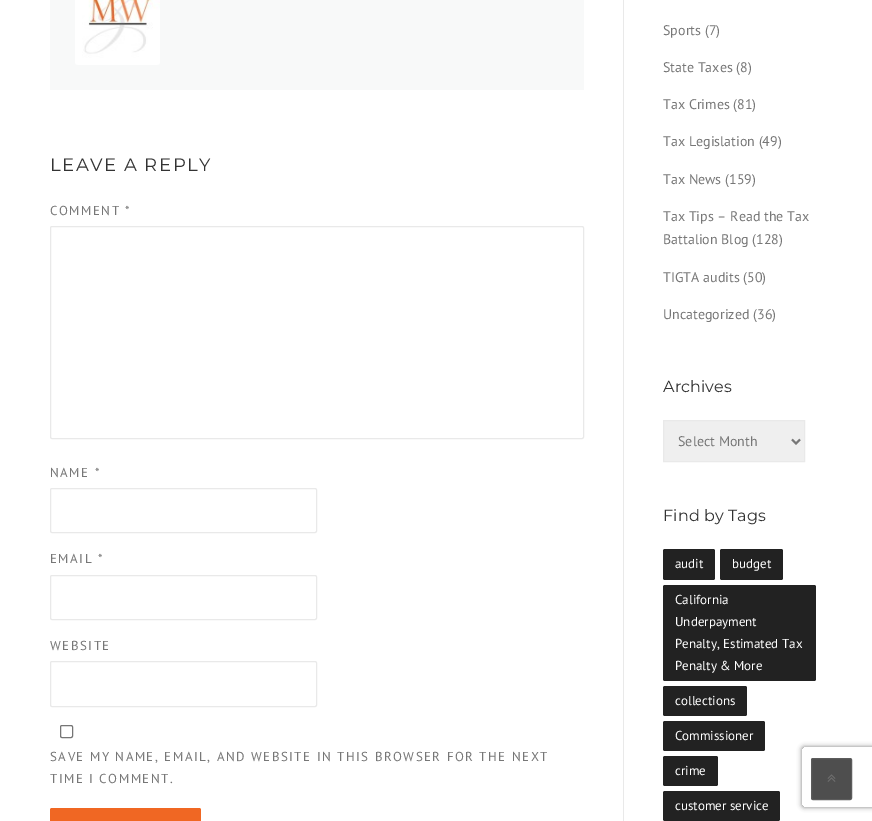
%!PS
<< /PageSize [872 821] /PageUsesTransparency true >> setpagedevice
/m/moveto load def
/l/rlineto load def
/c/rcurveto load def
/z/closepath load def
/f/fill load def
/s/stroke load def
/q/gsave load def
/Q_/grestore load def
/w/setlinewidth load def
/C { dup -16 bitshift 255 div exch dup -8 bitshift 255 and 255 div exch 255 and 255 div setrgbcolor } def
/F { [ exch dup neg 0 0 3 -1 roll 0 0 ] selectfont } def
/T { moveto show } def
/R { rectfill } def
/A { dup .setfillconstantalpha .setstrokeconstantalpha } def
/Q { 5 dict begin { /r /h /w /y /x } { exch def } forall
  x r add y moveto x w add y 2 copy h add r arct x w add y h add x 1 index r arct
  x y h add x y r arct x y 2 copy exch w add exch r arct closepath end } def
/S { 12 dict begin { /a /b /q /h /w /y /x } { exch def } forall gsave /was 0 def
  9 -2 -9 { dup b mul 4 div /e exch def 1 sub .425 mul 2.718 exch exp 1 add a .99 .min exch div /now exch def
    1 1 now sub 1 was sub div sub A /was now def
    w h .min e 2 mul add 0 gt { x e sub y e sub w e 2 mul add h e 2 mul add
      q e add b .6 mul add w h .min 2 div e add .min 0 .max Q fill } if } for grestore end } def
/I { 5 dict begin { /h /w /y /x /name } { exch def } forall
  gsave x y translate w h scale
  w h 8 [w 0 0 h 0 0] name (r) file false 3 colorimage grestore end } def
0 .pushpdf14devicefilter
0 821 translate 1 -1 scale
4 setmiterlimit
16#FFFFFF C
0 0 872 821 R
16#E9E9E9 C
623 0 1 821 R
16#F8F9F9 C
50 0 534 90 R
(1.rgb) 75 0 85 65 I
/Montserrat-Regular 18 F
16#333333 C
50 171 m 1.5 0 (LEAVE A REPLY) ashow
/PTSans-Regular 13 F
16#777777 C
50 215 m 1.5 0 (COMMENT *) ashow
16#E9E9E9 C
50.5 226.5 533 212 1.5 Q s
16#777777 C
50 477 m 1.5 0 (NAME *) ashow
16#E9E9E9 C
50.5 488.5 266 44 1.5 Q s
16#777777 C
50 563 m 1.5 0 (EMAIL *) ashow
16#E9E9E9 C
50.5 575.5 266 44 1.5 Q s
16#777777 C
50 650 m 1.5 0 (WEBSITE) ashow
16#E9E9E9 C
50.5 661.5 266 45 1.5 Q s
16#767676 C
60.5 725.5 12 12 1.5 Q s
16#777777 C
50 761 m 1.5 0 (SAVE MY NAME, EMAIL, AND WEBSITE IN THIS BROWSER FOR THE NEXT) ashow
50 783 m 1.5 0 (TIME I COMMENT.) ashow
16#F06723 C
50 808 151 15 2 Q f
/PTSans-Regular 14 F
16#777777 C
(Sports \(7\)) 663 35 T
(State Taxes \(8\)) 663 72 T
(Tax Crimes \(81\)) 663 109 T
(Tax Legislation \(49\)) 663 146 T
(Tax News \(159\)) 663 184 T
(Tax Tips – Read the Tax) 663 221 T
(Battalion Blog \(128\)) 663 244 T
(TIGTA audits \(50\)) 663 282 T
(Uncategorized \(36\)) 663 319 T
/Montserrat-Regular 16 F
16#333333 C
663 392 m .1 0 (Archives) ashow
16#EFEFEF C
663.5 420.5 m 141 0 l 0 41 l -141 0 l z q f Q_
16#E9E9E9 C
s
16#777777 C
2 w
792 439.5 m 4 4 l 4 -4 l s
/PTSans-Regular 14 F
(Select Month) 678 446 T
/Montserrat-Regular 16 F
16#333333 C
663 521 m .1 0 (Find by Tags) ashow
16#222222 C
663 549 52 31 2 Q f
/PTSans-Regular 13 F
16#FFFFFF C
(audit) 675 568 T
16#222222 C
720 549 63 31 2 Q f
16#FFFFFF C
(budget) 732 568 T
16#222222 C
663 585 153 96 2 Q f
16#FFFFFF C
(California) 675 604 T
(Underpayment) 675 626 T
(Penalty, Estimated Tax) 675 648 T
(Penalty & More) 675 670 T
16#222222 C
663 686 84 30 2 Q f
16#FFFFFF C
(collections) 675 705 T
16#222222 C
663 721 102 30 2 Q f
16#FFFFFF C
(Commissioner) 675 740 T
16#222222 C
663 756 55 30 2 Q f
16#FFFFFF C
(crime) 675 775 T
16#222222 C
663 791 117 30 2 Q f
16#FFFFFF C
(customer service) 675 810 T
q
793 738 m 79 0 l 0 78 l -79 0 l z 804 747 m 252 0 l 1 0 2 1 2 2 c 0 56 l 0 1 -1 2 -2 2 c -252 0 l -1 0 -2 -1 -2 -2 c 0 -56 l 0 -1 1 -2 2 -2 c z eoclip newpath
16#808080 C
802 747 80 60 2 2.5 1 S
Q_
16#4E4E4E C
811.5 758.5 40 41 1.5 Q q f Q_
16#5C5C5C C
1 w
s
(2.rgb) 827 774 9 8 I
.poppdf14devicefilter showpage
